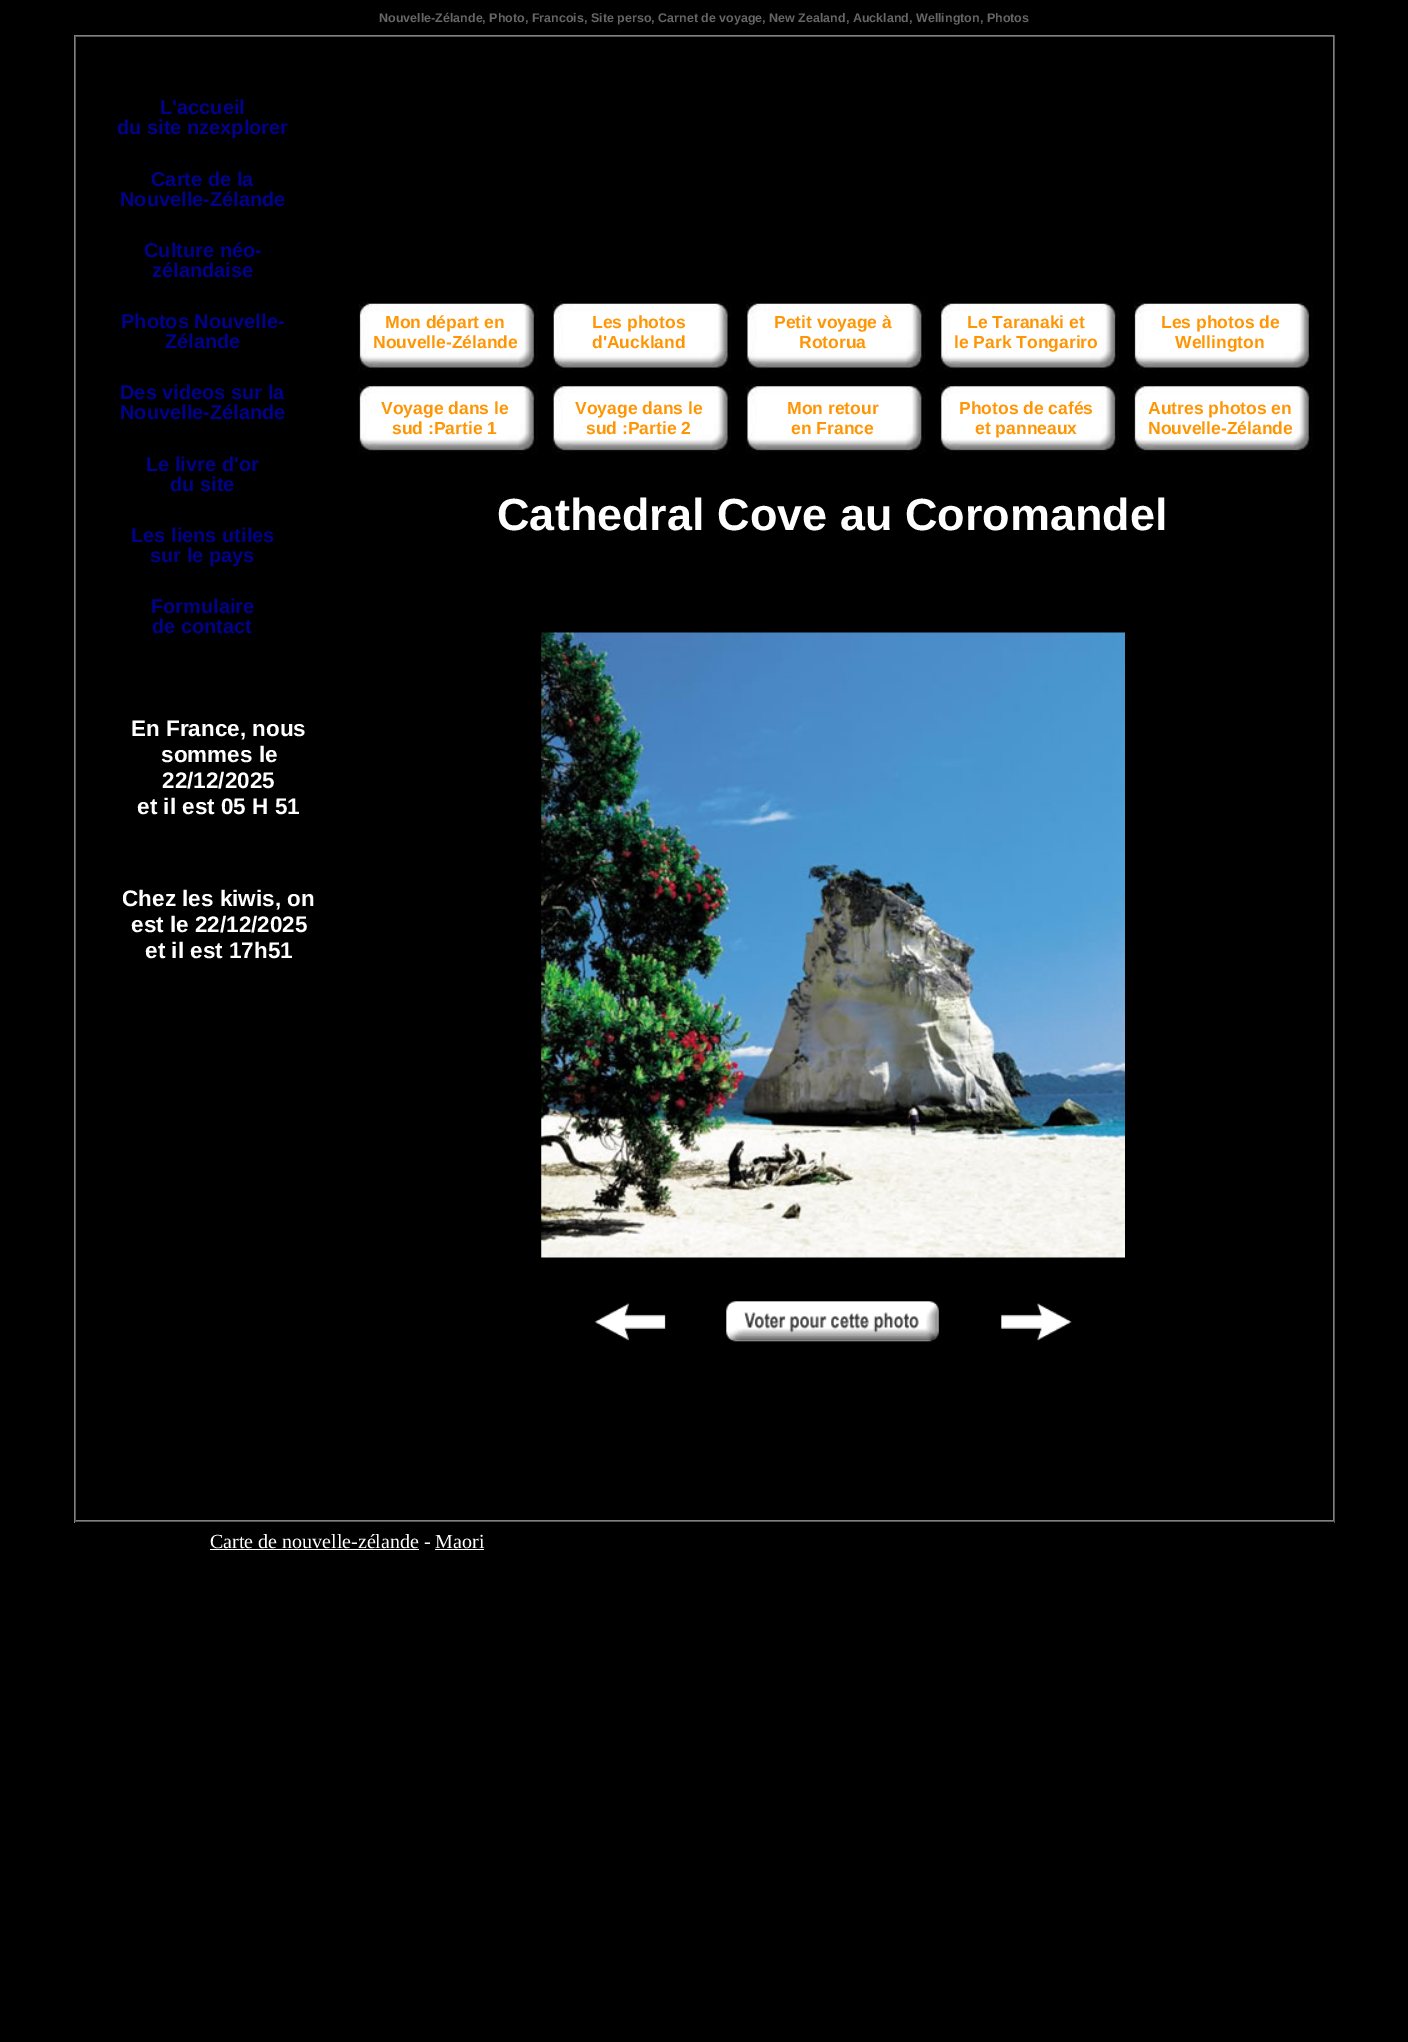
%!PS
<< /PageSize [1408 2042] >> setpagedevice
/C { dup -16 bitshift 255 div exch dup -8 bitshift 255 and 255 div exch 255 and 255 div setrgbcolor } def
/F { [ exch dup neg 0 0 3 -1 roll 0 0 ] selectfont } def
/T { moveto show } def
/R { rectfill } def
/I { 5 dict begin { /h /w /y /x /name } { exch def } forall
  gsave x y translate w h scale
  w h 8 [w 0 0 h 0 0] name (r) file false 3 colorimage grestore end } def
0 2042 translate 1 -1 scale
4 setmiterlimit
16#000000 C
0 0 1408 2042 R
/LiberationSans-Bold 12.5 F
16#666666 C
(Nouvelle-Zélande, Photo, Francois, Site perso, Carnet de voyage, New Zealand, Auckland, Wellington, Photos) 379 22 T
16#808080 C
74 35 1261 1 R
16#555555 C
1334 35 1 1488 R
74 1521 1261 1 R
16#808080 C
74 35 1 1488 R
16#555555 C
75 36 1259 1 R
16#808080 C
1333 36 1 1485 R
75 1520 1259 1 R
16#555555 C
75 36 1 1485 R
/LiberationSans-Bold 20 F
16#000289 C
(L'accueil) 160 114 T
(du site nzexplorer) 117 134 T
(Carte de la) 151 186 T
(Nouvelle-Zélande) 120 206 T
(Culture néo-) 144 257 T
(zélandaise) 152 277 T
(Photos Nouvelle-) 121 328 T
(Zélande) 165 348 T
(Des videos sur la) 120 399 T
(Nouvelle-Zélande) 120 419 T
(Le livre d'or) 146 471 T
(du site) 170 491 T
(Les liens utiles) 131 542 T
(sur le pays) 150 562 T
(Formulaire) 151 613 T
(de contact) 152 633 T
/LiberationSans-Bold 22.5 F
16#FFFFFF C
(En France, nous) 131 736 T
(sommes le) 161 762 T
(22/12/2025) 162 788 T
(et il est 05 H 51) 137 814 T
(Chez les kiwis, on) 122 906 T
(est le 22/12/2025) 131 932 T
(et il est 17h51) 145 958 T
(1.rgb) 359 301 179 70 I
/LiberationSans-Bold 17.5 F
16#FE9505 C
(Mon départ en) 385 328 T
(Nouvelle-Zélande) 373 348 T
(2.rgb) 552 301 179 70 I
(Les photos) 592 328 T
(d'Auckland) 592 348 T
(3.rgb) 746 301 179 70 I
(Petit voyage à) 774 328 T
(Rotorua) 799 348 T
(4.rgb) 940 301 179 70 I
(Le Taranaki et) 967 328 T
(le Park Tongariro) 954 348 T
(1.rgb) 1134 301 179 70 I
(Les photos de) 1161 328 T
(Wellington) 1175 348 T
(5.rgb) 359 384 179 70 I
(Voyage dans le) 381 414 T
(sud :Partie 1) 392 434 T
(6.rgb) 552 384 179 70 I
(Voyage dans le) 575 414 T
(sud :Partie 2) 586 434 T
(7.rgb) 746 384 179 70 I
(Mon retour) 787 414 T
(en France) 791 434 T
(8.rgb) 940 384 179 70 I
(Photos de cafés) 959 414 T
(et panneaux) 975 434 T
(9.rgb) 1134 384 179 70 I
(Autres photos en) 1148 414 T
(Nouvelle-Zélande) 1148 434 T
/LiberationSans-Bold 45 F
16#FFFFFF C
(Cathedral Cove au Coromandel) 497 530 T
(10.rgb) 541 632 584 626 I
(11.rgb) 594 1303 72 38 I
(12.rgb) 726 1301 213 41 I
(13.rgb) 1001 1303 71 38 I
/LiberationSerif-Regular 20 F
(Carte de nouvelle-zélande - Maori) 210 1548 T
210 1549 209 1 R
435 1549 49 1 R
showpage
